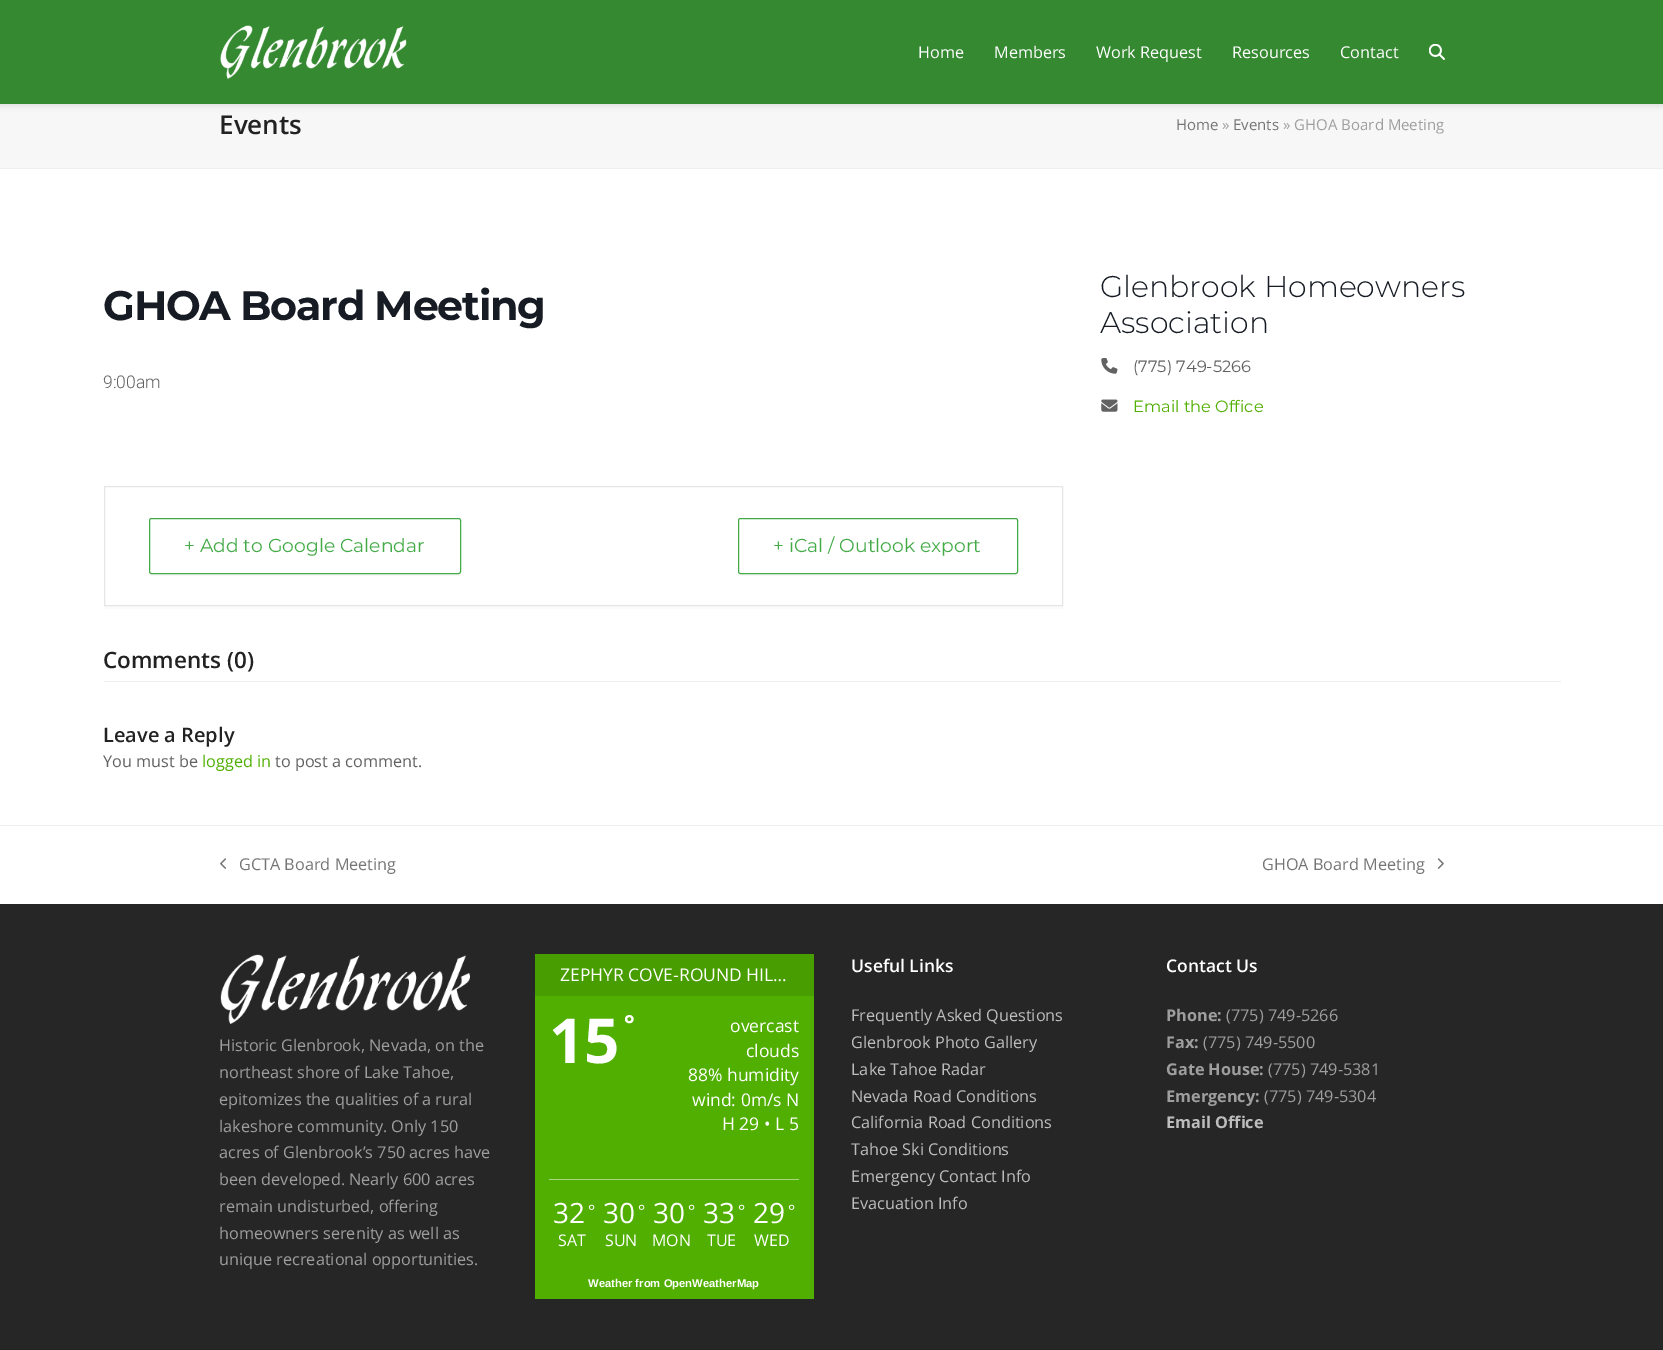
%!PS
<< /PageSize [1663 1350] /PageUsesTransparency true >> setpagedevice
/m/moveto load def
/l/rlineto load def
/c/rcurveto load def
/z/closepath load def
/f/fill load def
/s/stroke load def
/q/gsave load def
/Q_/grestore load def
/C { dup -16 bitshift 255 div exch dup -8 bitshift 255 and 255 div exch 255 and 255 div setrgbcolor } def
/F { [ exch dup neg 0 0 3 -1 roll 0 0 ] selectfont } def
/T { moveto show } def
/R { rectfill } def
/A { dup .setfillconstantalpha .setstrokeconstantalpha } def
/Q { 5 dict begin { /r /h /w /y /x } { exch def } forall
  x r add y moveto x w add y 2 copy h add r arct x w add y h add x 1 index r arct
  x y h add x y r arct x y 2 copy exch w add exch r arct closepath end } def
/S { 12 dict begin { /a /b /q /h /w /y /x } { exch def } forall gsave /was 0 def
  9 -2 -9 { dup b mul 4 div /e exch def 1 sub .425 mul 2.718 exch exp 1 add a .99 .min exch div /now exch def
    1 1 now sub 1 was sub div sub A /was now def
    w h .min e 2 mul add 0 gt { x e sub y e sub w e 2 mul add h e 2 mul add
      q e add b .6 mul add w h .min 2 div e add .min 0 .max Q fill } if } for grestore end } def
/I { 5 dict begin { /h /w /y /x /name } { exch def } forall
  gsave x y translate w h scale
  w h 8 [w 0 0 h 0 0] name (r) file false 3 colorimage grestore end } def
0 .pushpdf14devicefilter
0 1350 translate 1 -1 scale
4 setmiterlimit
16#FFFFFF C
0 0 1663 1350 R
16#F7F7F7 C
0 104 1663 64 R
16#000000 C
0 3 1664 103 0 3 .1 S
16#358931 C
0 0 1663 104 R
(1.rgb) 220 25 187 54 I
/OpenSans-Regular 16.25 F
16#FFFFFF C
(Home) 918 58 T
(Members) 994 58 T
(Work Request) 1096 58 T
(Resources) 1232 58 T
(Contact) 1340 58 T
(2.rgb) 1429 44 16 16 I
16#EEEEEE C
0 168 1663 1 R
/OpenSans-SemiBold 26 F
16#222222 C
(Events) 219 134 T
/OpenSans-Regular 15 F
16#757575 C
(Home) 1176 130 T
16#9E9E9E C
(») 1222 130 T
16#757575 C
(Events) 1233 130 T
16#9E9E9E C
(» GHOA Board Meeting) 1283 130 T
/Montserrat-Bold 41.25 F
16#171C24 C
103 320 m -1.25 0 (GHOA Board Meeting) ashow
/Roboto-Light 17.5 F
16#616161 C
(9:00am) 103 388 T
16#FBFBFB C
104 606 m 0 3 l 959 0 l 0 -120 l -1 0 l 0 117 l z f
16#E6E6E6 C
104.5 486.5 958 119 rectstroke
16#F7F7F7 C
149 572 m 0 3 l 2 1 l 307 0 l 3 0 3 -2 3 -4 c 0 1 -1 2 -2 2 c -308 0 l -1 0 -2 -1 -2 -2 c z f
16#45AB48 C
149.5 518.5 311 55 2 Q s
/Montserrat-Regular 18.75 F
(+ Add to Google Calendar) 184 552 T
16#F7F7F7 C
738 573 m 0 1 l 0 1 1 2 2 2 c 276 0 l 1 0 2 -1 2 -2 c 0 -52 l 0 -1 l 0 50 l 0 2 -2 3 -3 3 c -275 0 l -1 0 -2 -1 -2 -1 c z f
16#FFFFFF C
738.5 518.5 279 55 2 Q q f Q_
16#45AB48 C
s
(+ iCal / Outlook export) 773 552 T
/Montserrat-Light 30 F
16#171C24 C
(Glenbrook Homeowners) 1100 297 T
(Association) 1100 333 T
(3.rgb) 1101 358 17 16 I
/Montserrat-Regular 16.25 F
16#616161 C
(\(775\) 749-5266) 1133 372 T
(4.rgb) 1101 399 17 13 I
16#50AF01 C
(Email the Office) 1133 412 T
16#EEEEEE C
104 681 1457 1 R
/OpenSans-SemiBold 22.5 F
16#222222 C
(Comments \(0\)) 103 668 T
/OpenSans-SemiBold 20 F
(Leave a Reply) 103 742 T
/OpenSans-Regular 16.25 F
16#616161 C
(You must be) 103 767 T
16#50AF01 C
(logged in) 202 767 T
16#616161 C
(to post a comment.) 275 767 T
16#EEEEEE C
0 825 1663 1 R
(5.rgb) 220 858 6 11 I
16#757575 C
(GCTA Board Meeting) 239 870 T
(GHOA Board Meeting) 1262 870 T
(6.rgb) 1437 858 7 11 I
16#262626 C
0 904 1663 445 R
(7.rgb) 220 954 250 70 I
16#9E9E9E C
(Historic Glenbrook, Nevada, on the) 219 1051 T
(northeast shore of Lake Tahoe,) 219 1078 T
(epitomizes the qualities of a rural) 219 1105 T
(lakeshore community. Only 150) 219 1132 T
(acres of Glenbrook’s 750 acres have) 219 1158 T
(been developed. Nearly 600 acres) 219 1185 T
(remain undisturbed, offering) 219 1212 T
(homeowners serenity as well as) 219 1239 T
(unique recreational opportunities.) 219 1265 T
16#50AF01 C
535 996 279 303 R
16#489E01 C
535 954 279 42 R
/OpenSans-Regular 17.5 F
16#FFFFFF C
(ZEPHYR COVE-ROUND HIL…) 560 981 T
/OpenSans-Bold 62 F
(15) 549 1063 T
/OpenSans-Bold 25 F
(°) 624 1033 T
/OpenSans-Regular 17.5 F
(overcast) 730 1032 T
(clouds) 746 1057 T
(88% humidity) 688 1081 T
(wind: 0m/s N) 692 1106 T
(H 29 • L 5) 722 1130 T
16#A8D780 C
549 1179 250 1 R
/OpenSans-Regular 28 F
16#FFFFFF C
(32) 553 1223 T
/OpenSans-Regular 17 F
(°) 588 1217 T
/OpenSans-Regular 16 F
(SAT) 558 1246 T
/OpenSans-Regular 28 F
(30) 603 1223 T
/OpenSans-Regular 17 F
(°) 638 1217 T
/OpenSans-Regular 16 F
(SUN) 605 1246 T
/OpenSans-Regular 28 F
(30) 653 1223 T
/OpenSans-Regular 17 F
(°) 688 1217 T
/OpenSans-Regular 16 F
(MON) 652 1246 T
/OpenSans-Regular 28 F
(33) 703 1223 T
/OpenSans-Regular 17 F
(°) 738 1217 T
/OpenSans-Regular 16 F
(TUE) 707 1246 T
/OpenSans-Regular 28 F
(29) 753 1223 T
/OpenSans-Regular 17 F
(°) 788 1217 T
/OpenSans-Regular 16 F
(WED) 754 1246 T
/LiberationSans-Bold 11.25 F
(Weather from OpenWeatherMap) 588 1287 T
/OpenSans-SemiBold 17.5 F
(Useful Links) 851 972 T
/OpenSans-Regular 16.25 F
16#BDBDBD C
(Frequently Asked Questions) 851 1021 T
(Glenbrook Photo Gallery) 851 1048 T
(Lake Tahoe Radar) 851 1075 T
(Nevada Road Conditions) 851 1102 T
(California Road Conditions) 851 1128 T
(Tahoe Ski Conditions) 851 1155 T
(Emergency Contact Info) 851 1182 T
(Evacuation Info) 851 1209 T
/OpenSans-SemiBold 17.5 F
16#FFFFFF C
(Contact Us) 1166 972 T
/OpenSans-Bold 16.25 F
16#9E9E9E C
(Phone:) 1166 1021 T
/OpenSans-Regular 16.25 F
(\(775\) 749-5266) 1226 1021 T
/OpenSans-Bold 16.25 F
(Fax:) 1166 1048 T
/OpenSans-Regular 16.25 F
(\(775\) 749-5500) 1203 1048 T
/OpenSans-Bold 16.25 F
(Gate House:) 1166 1075 T
/OpenSans-Regular 16.25 F
(\(775\) 749-5381) 1268 1075 T
/OpenSans-Bold 16.25 F
(Emergency:) 1166 1102 T
/OpenSans-Regular 16.25 F
(\(775\) 749-5304) 1264 1102 T
/OpenSans-Bold 16.25 F
16#BDBDBD C
(Email Office) 1166 1128 T
16#222222 C
0 1349 1663 1 R
.poppdf14devicefilter showpage
